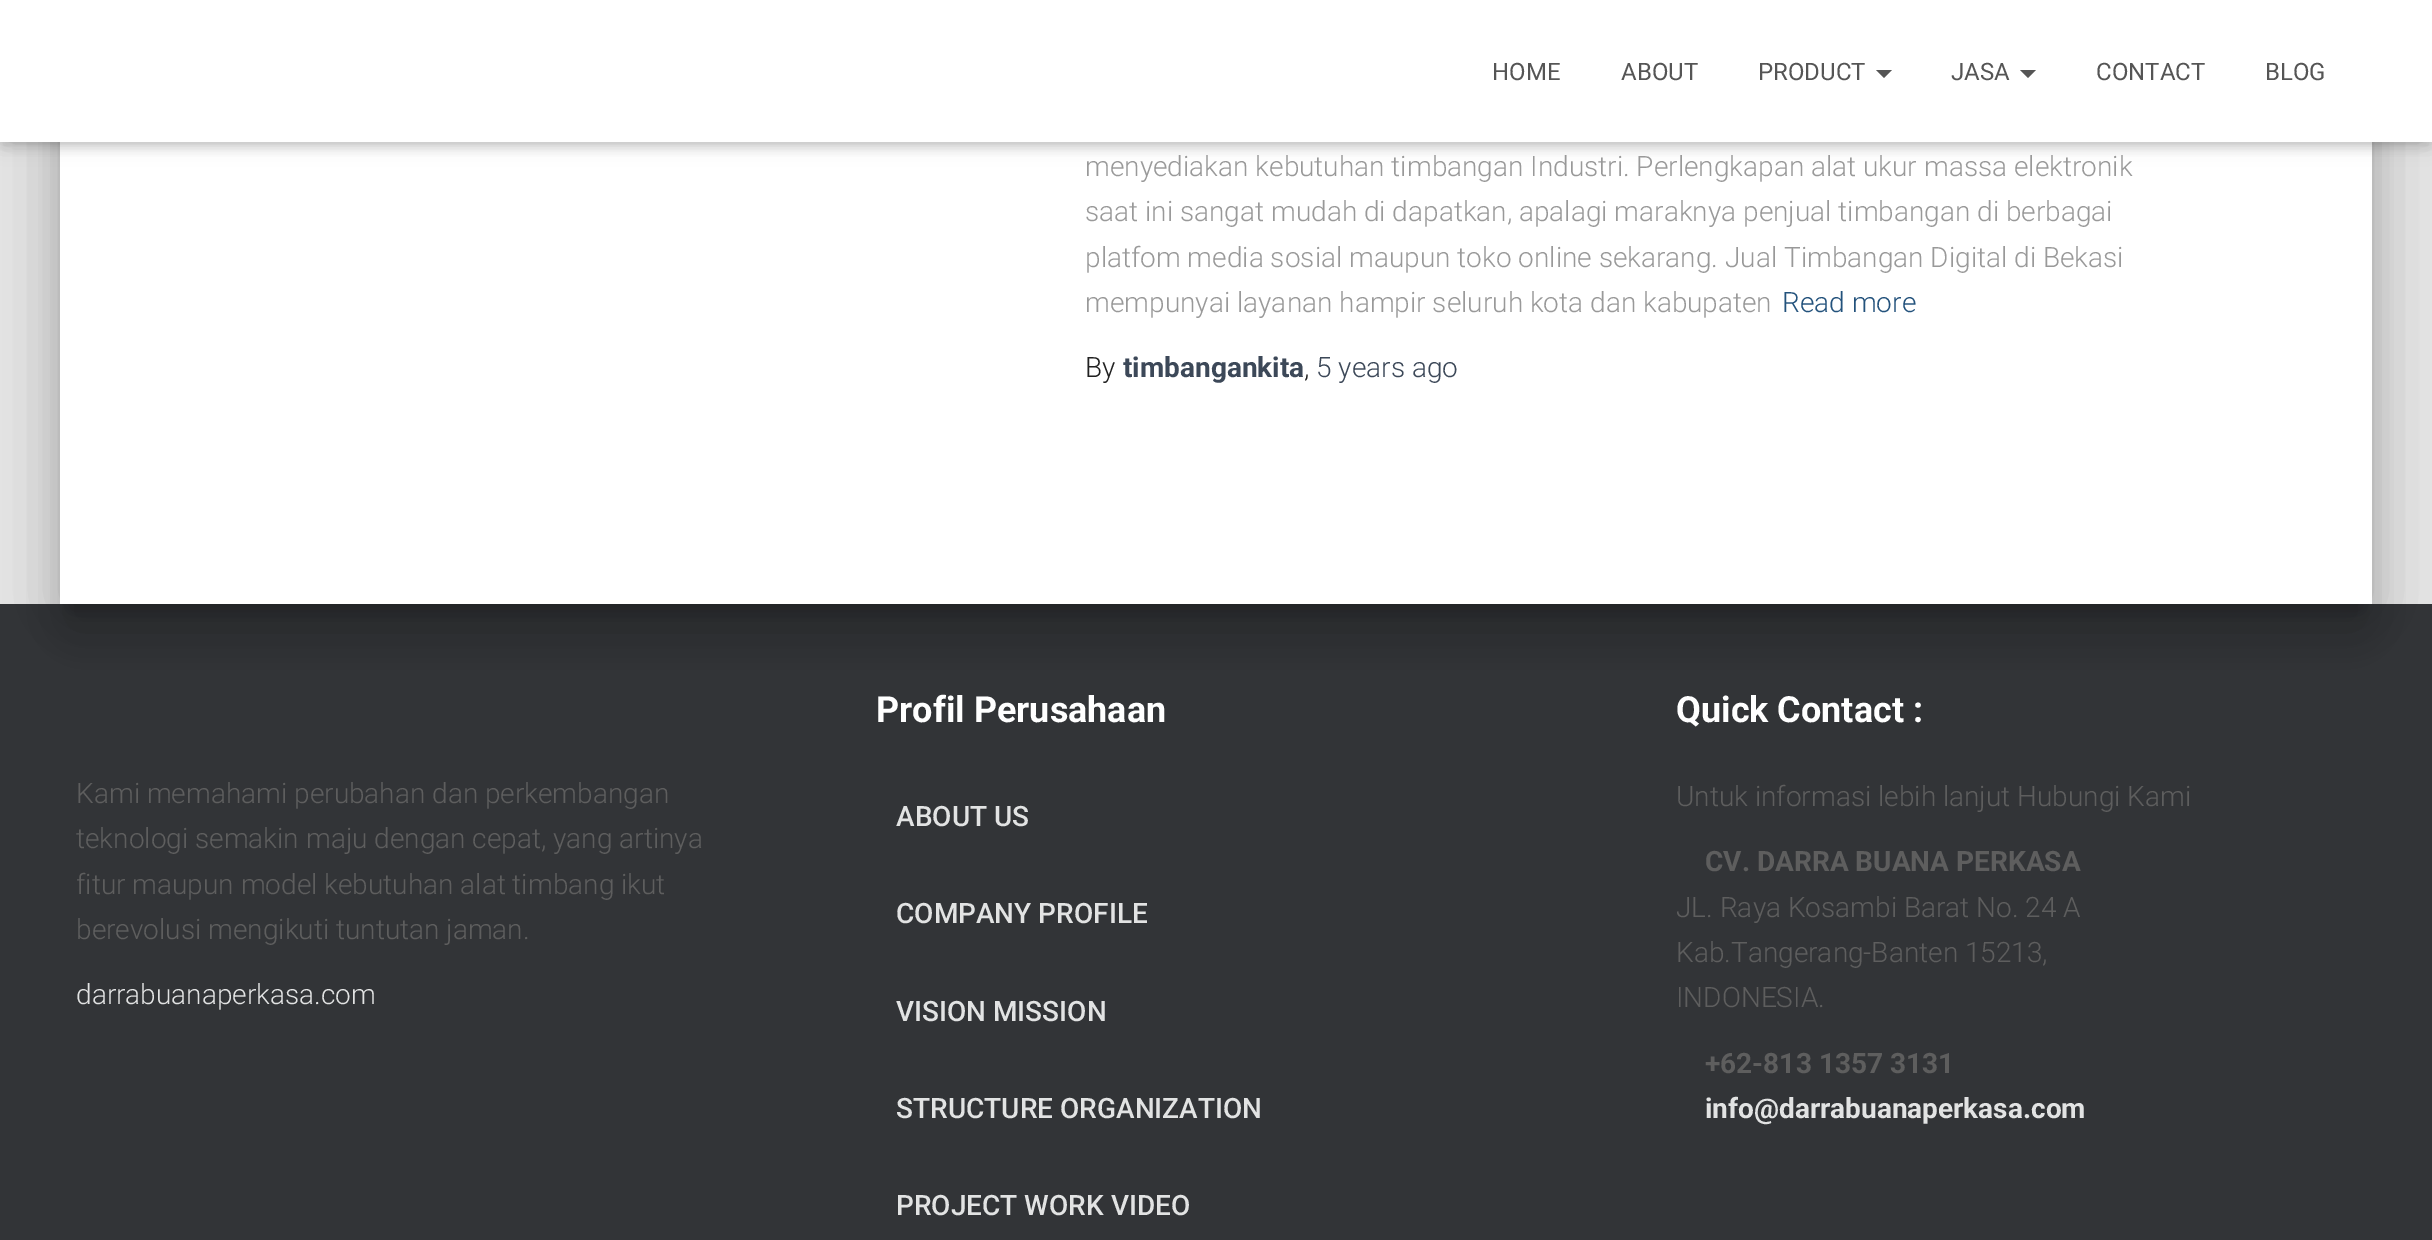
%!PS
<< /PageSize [2432 1240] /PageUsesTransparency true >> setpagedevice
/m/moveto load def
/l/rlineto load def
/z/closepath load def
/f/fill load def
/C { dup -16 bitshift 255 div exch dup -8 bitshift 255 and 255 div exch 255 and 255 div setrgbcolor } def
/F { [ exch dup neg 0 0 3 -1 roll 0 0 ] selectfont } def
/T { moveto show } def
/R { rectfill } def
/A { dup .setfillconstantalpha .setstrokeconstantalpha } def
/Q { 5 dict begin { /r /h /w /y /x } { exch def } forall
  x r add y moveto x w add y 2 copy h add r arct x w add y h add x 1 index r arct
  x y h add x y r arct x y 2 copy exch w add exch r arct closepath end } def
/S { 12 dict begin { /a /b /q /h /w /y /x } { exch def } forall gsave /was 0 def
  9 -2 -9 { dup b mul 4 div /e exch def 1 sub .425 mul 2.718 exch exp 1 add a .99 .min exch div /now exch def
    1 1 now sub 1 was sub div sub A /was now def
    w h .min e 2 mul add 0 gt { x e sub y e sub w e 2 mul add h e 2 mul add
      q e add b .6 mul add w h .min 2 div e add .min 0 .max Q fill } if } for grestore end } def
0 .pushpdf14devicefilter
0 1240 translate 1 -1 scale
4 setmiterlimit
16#E5E5E5 C
0 0 2432 1240 R
16#323437 C
0 604 2432 636 R
16#000000 C
70 -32 2292 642 2 10 .2 S
50 -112 2332 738 22 30 .12 S
56 -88 2320 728 16 24 .14 S
16#FFFFFF C
60 142 2312 462 R
16#000000 C
4 12 2424 134 0 5 .1 S
0 2 2432 142 0 10 .12 S
12 14 2408 118 0 10 .42 S
16#FFFFFF C
0 0 2432 142 R
/Roboto-Regular 24 F
16#555555 C
(HOME) 1492 80 T
(ABOUT) 1621 80 T
(PRODUCT) 1758 80 T
1876 70 m 16 0 l -8 8 l z f
(JASA) 1951 80 T
2020 70 m 16 0 l -8 8 l z f
(CONTACT) 2096 80 T
(BLOG) 2265 80 T
/Roboto-Light 28 F
16#999999 C
(menyediakan kebutuhan timbangan Industri. Perlengkapan alat ukur massa elektronik) 1085 176 T
(saat ini sangat mudah di dapatkan, apalagi maraknya penjual timbangan di berbagai) 1085 221 T
(platfom media sosial maupun toko online sekarang. Jual Timbangan Digital di Bekasi) 1085 267 T
(mempunyai layanan hampir seluruh kota dan kabupaten) 1085 312 T
16#23527C C
(Read more) 1782 312 T
16#212121 C
(By) 1085 377 T
/Roboto-Bold 28 F
16#3C4858 C
(timbangankita) 1123 377 T
/Roboto-Light 28 F
16#212121 C
(,) 1304 377 T
16#3C4858 C
(5 years ago) 1316 377 T
16#5E5E5E C
(Kami memahami perubahan dan perkembangan) 76 803 T
(teknologi semakin maju dengan cepat, yang artinya) 76 848 T
(fitur maupun model kebutuhan alat timbang ikut) 76 894 T
(berevolusi mengikuti tuntutan jaman.) 76 939 T
16#E2E3E3 C
(darrabuanaperkasa.com) 76 1004 T
/Roboto-Bold 36 F
16#FFFFFF C
(Profil Perusahaan) 876 722 T
/Roboto-Medium 28 F
16#E2E3E3 C
(ABOUT US) 896 826 T
(COMPANY PROFILE) 896 923 T
(VISION MISSION) 896 1021 T
(STRUCTURE ORGANIZATION) 896 1118 T
(PROJECT WORK VIDEO) 896 1215 T
/Roboto-Bold 36 F
16#FFFFFF C
(Quick Contact :) 1676 722 T
/Roboto-Light 28 F
16#5E5E5E C
(Untuk informasi lebih lanjut Hubungi Kami) 1676 806 T
/Roboto-Bold 28 F
(CV. DARRA BUANA PERKASA) 1705 871 T
/Roboto-Light 28 F
(JL. Raya Kosambi Barat No. 24 A) 1676 917 T
(Kab.Tangerang-Banten 15213,) 1676 962 T
(INDONESIA.) 1676 1007 T
/Roboto-Bold 28 F
(+62-813 1357 3131) 1705 1073 T
16#E2E3E3 C
(info@darrabuanaperkasa.com) 1705 1118 T
.poppdf14devicefilter showpage
